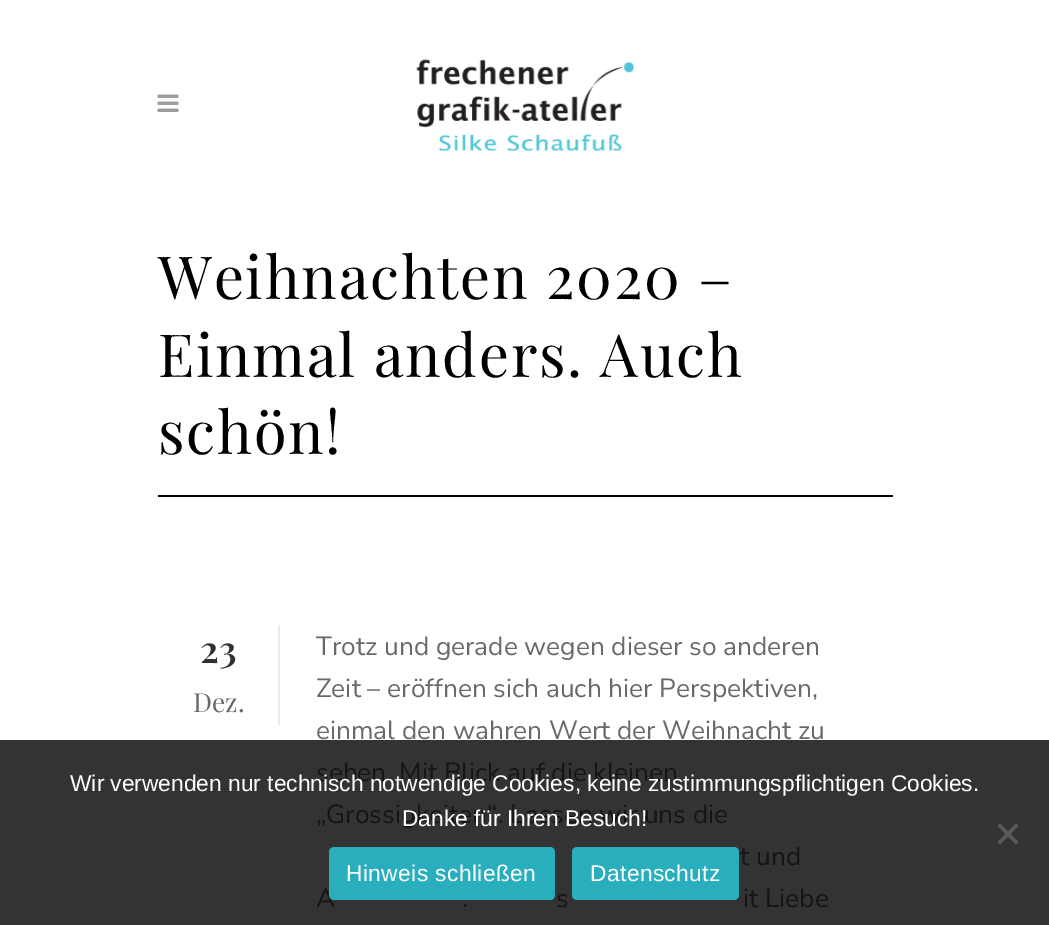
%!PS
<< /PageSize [1049 925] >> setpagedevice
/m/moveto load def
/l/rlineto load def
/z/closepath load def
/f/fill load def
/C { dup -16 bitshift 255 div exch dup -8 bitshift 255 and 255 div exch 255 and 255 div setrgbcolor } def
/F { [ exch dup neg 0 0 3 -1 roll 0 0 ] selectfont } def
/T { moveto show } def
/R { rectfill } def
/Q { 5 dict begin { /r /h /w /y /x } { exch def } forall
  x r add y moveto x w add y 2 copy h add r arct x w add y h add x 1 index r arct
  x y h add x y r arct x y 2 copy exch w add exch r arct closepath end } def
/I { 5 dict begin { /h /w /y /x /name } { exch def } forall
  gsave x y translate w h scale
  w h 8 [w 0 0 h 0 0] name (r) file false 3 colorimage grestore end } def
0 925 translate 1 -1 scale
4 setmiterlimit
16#FFFFFF C
0 0 1049 925 R
16#333333 C
0 740 1049 185 R
(1.rgb) 157 94 22 18 I
(2.rgb) 416 59 218 92 I
/PlayfairDisplay-Regular 59.5 F
16#000000 C
158 299 m 1.75 0 (Weihnachten 2020 –) ashow
158 377 m 1.75 0 (Einmal anders. Auch) ashow
158 454 m 1.75 0 (schön!) ashow
158 495 735 2 R
16#EBEBEB C
278 625 2 100 R
/PlayfairDisplay-SemiBold 37 F
16#303030 C
(23) 200 663 T
/PlayfairDisplay-Regular 26.25 F
16#696969 C
(Dez.) 193 712 T
/NunitoSans-Regular 26.25 F
(Trotz und gerade wegen dieser so anderen) 316 655 T
(Zeit – eröffnen sich auch hier Perspektiven,) 316 697 T
(einmal den wahren Wert der Weihnacht zu) 316 739 T
16#151515 C
(sehen. Mit Blick auf die kleinen) 316 781 T
(„Grossigkeiten“. Lassen wir uns die) 316 823 T
(t und) 740 865 T
(A) 316 907 T
(.) 462 907 T
(s) 556 907 T
(it Liebe) 743 907 T
/LiberationSans-Regular 22.75 F
16#FFFFFF C
(Wir verwenden nur technisch notwendige Cookies, keine zustimmungspflichtigen Cookies.) 70 791 T
(Danke für Ihren Besuch!) 402 826 T
16#5A5A5A C
1016 823.5 m 2.5 2.5 l -18.5 18.5 l -2.5 -2.5 l z f
997.5 826 m 2.5 -2.5 l 18.5 18.5 l -2.5 2.5 l z f
16#29AEBE C
329 847 226 53 5 Q f
16#FFFFFF C
346 881 m .4 0 (Hinweis schließen) ashow
16#29AEBE C
572 847 167 53 5 Q f
16#FFFFFF C
590 881 m .4 0 (Datenschutz) ashow
showpage
